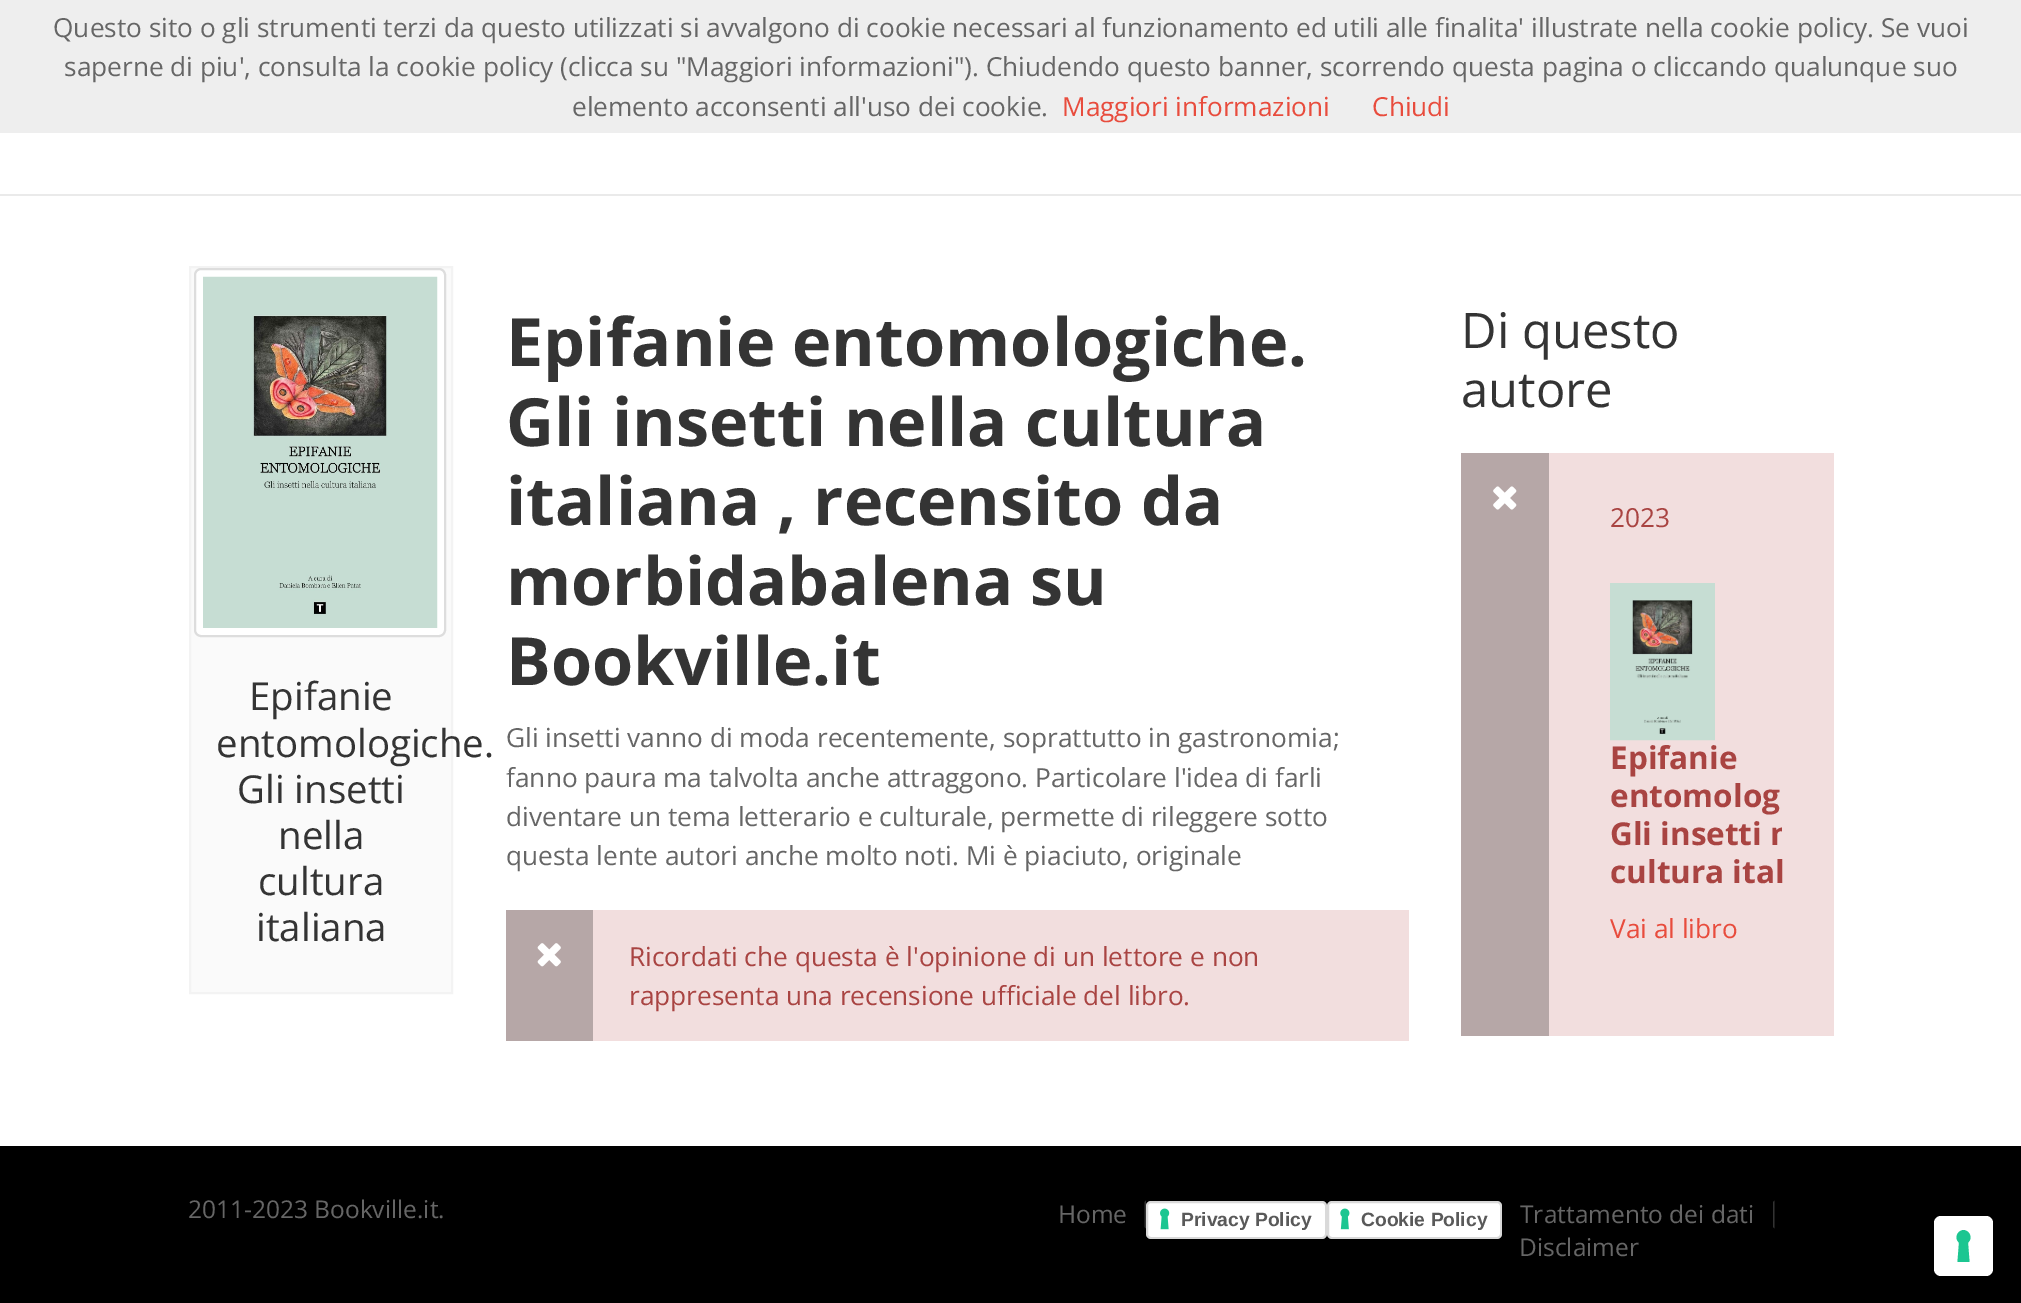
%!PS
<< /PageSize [2021 1303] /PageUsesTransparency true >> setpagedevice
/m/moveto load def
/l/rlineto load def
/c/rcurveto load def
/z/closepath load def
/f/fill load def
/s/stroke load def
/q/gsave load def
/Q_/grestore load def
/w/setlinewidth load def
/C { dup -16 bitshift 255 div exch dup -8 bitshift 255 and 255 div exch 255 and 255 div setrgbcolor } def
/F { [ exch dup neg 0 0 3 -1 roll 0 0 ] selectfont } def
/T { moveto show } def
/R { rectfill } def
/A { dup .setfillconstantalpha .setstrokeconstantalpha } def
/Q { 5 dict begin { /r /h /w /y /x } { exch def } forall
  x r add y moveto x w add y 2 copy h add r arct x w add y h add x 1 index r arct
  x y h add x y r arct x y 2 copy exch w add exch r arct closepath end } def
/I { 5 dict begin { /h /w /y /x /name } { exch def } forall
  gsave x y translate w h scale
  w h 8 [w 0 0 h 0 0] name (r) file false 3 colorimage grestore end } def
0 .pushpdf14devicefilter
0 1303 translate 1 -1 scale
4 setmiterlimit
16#FFFFFF C
0 0 2021 1303 R
16#EEEEEE C
0 0 2021 133 R
/OpenSans-Regular 26.25 F
16#666666 C
(Questo sito o gli strumenti terzi da questo utilizzati si avvalgono di cookie necessari al funzionamento ed utili alle finalita' illustrate nella cookie policy. Se vuoi) 53 37 T
(saperne di piu', consulta la cookie policy \(clicca su "Maggiori informazioni"\). Chiudendo questo banner, scorrendo questa pagina o cliccando qualunque suo) 64 76 T
(elemento acconsenti all'uso dei cookie.) 572 116 T
16#E84C3D C
(Maggiori informazioni) 1062 116 T
(Chiudi) 1372 116 T
16#EAEAEA C
0 194 2021 2 R
16#FAFAFA C
190 267 m 262 0 l 0 726 l -262 0 l z q f Q_
16#F3F3F3 C
2 w
s
16#FFFFFF C
195 269 250 367 6 Q q f Q_
16#DDDDDD C
s
(1.rgb) 203 276 235 352 I
/OpenSans-Regular 38.5 F
16#343434 C
(Epifanie) 249 710 T
(entomologiche.) 216 757 T
(Gli insetti) 237 803 T
(nella) 278 849 T
(cultura) 258 895 T
(italiana) 256 941 T
/OpenSans-Bold 66.5 F
(Epifanie entomologiche.) 506 366 T
(Gli insetti nella cultura) 506 446 T
(italiana , recensito da) 506 525 T
(morbidabalena su) 506 605 T
(Bookville.it) 506 685 T
/OpenSans-Regular 26.25 F
16#666666 C
(Gli insetti vanno di moda recentemente, soprattutto in gastronomia;) 506 747 T
(fanno paura ma talvolta anche attraggono. Particolare l'idea di farli) 506 787 T
(diventare un tema letterario e culturale, permette di rileggere sotto) 506 826 T
(questa lente autori anche molto noti. Mi è piaciuto, originale) 506 865 T
16#F2DEDE C
593 910 816 131 R
16#B6A7A7 C
506 910 87 131 R
(2.rgb) 537 943 24 24 I
16#A94442 C
(Ricordati che questa è l'opinione di un lettore e non) 629 966 T
(rappresenta una recensione ufficiale del libro.) 629 1005 T
/OpenSans-Regular 49 F
16#343434 C
(Di questo) 1461 348 T
(autore) 1461 407 T
16#F2DEDE C
1549 453 285 583 R
16#B6A7A7 C
1461 453 88 583 R
(3.rgb) 1493 486 24 24 I
/OpenSans-Regular 26.25 F
16#A94442 C
(2023) 1610 527 T
(4.rgb) 1610 583 105 158 I
/OpenSans-Bold 31.5 F
(Epifanie) 1610 769 T
(entomolog) 1610 807 T
q
1610 740 172 168 rectclip
(Gli insetti n) 1610 845 T
Q_
(cultura ital) 1610 883 T
/OpenSans-Regular 26.25 F
16#E84C3D C
(Vai al libro) 1610 938 T
16#000000 C
0 1146 2021 157 R
/OpenSans-Regular 24.5 F
16#666666 C
(2011-2023 Bookville.it.) 188 1218 T
16#333333 C
1146 1200.5 m 0 28 l -1.5 -1.5 l 0 -25 l z f
16#666666 C
(Home) 1058 1223 T
16#FFFFFF C
1146 1201 181 38 5 Q f
(5.rgb) 1160 1208 10 22 I
0.15 A
16#000000 C
1147 1202 179 36 4 Q s
/LiberationSans-Bold 19.25 F
1 A
16#595959 C
(Privacy Policy) 1181 1226 T
16#FFFFFF C
1327 1201 175 38 5 Q f
(6.rgb) 1340 1208 10 22 I
0.15 A
16#000000 C
1328 1202 173 36 4 Q s
1 A
16#595959 C
(Cookie Policy) 1361 1226 T
16#333333 C
1774.5 1200.5 m 0 28 l -1.5 -1.5 l 0 -25 l z f
/OpenSans-Regular 24.5 F
16#666666 C
(Trattamento dei dati) 1520 1223 T
(Disclaimer) 1519 1256 T
16#FFFFFF C
1934 1216 59 60 7 Q f
16#1CC691 C
1963.5 1230 m 6.5 .5 9.5 8.5 4.5 12.5 c 1.5 19.5 l -12 0 l 1.5 -19.5 l -5 -4 -2 -12 4.5 -12.5 c z eofill
.poppdf14devicefilter showpage
